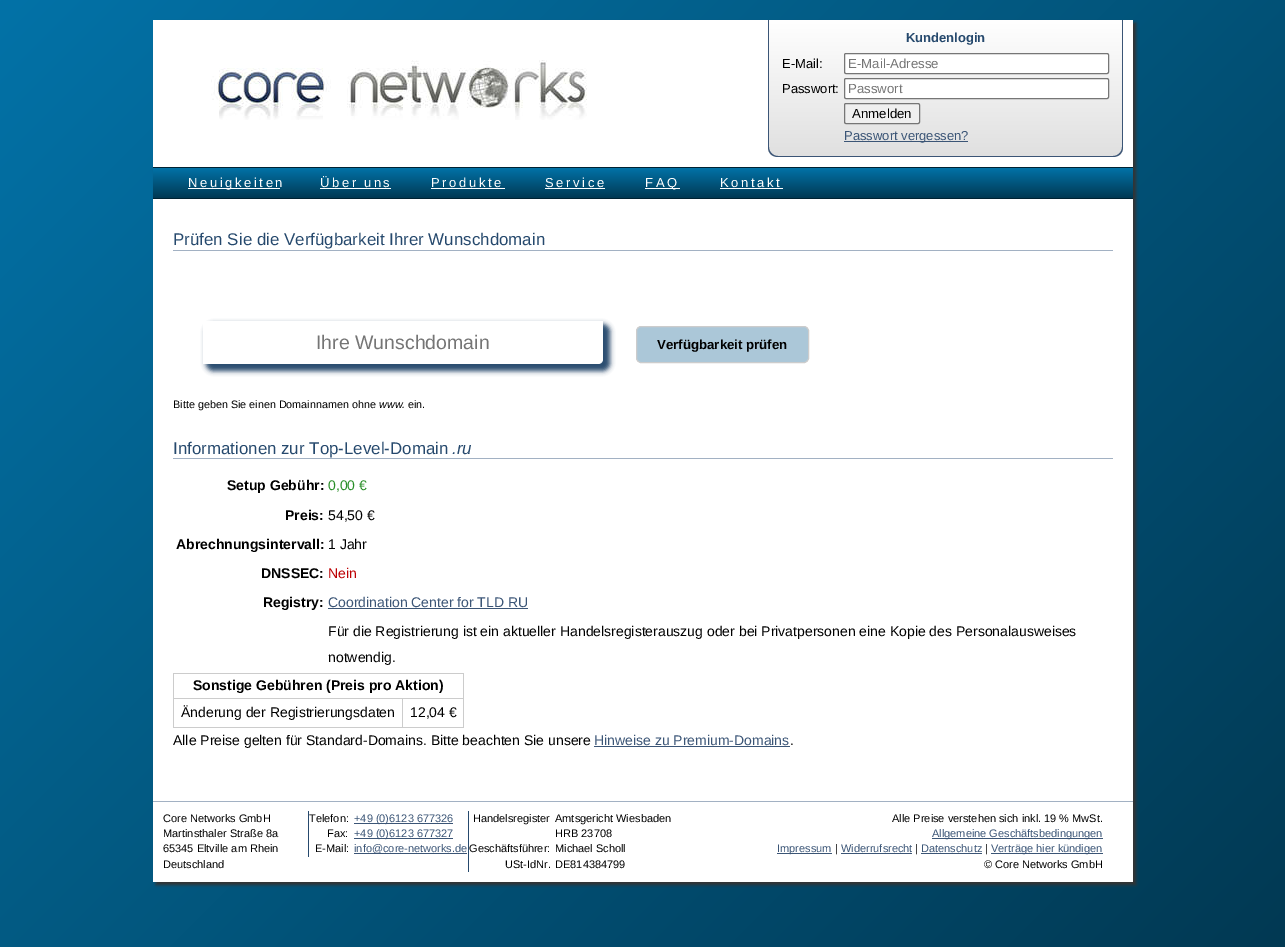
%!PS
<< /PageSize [1285 947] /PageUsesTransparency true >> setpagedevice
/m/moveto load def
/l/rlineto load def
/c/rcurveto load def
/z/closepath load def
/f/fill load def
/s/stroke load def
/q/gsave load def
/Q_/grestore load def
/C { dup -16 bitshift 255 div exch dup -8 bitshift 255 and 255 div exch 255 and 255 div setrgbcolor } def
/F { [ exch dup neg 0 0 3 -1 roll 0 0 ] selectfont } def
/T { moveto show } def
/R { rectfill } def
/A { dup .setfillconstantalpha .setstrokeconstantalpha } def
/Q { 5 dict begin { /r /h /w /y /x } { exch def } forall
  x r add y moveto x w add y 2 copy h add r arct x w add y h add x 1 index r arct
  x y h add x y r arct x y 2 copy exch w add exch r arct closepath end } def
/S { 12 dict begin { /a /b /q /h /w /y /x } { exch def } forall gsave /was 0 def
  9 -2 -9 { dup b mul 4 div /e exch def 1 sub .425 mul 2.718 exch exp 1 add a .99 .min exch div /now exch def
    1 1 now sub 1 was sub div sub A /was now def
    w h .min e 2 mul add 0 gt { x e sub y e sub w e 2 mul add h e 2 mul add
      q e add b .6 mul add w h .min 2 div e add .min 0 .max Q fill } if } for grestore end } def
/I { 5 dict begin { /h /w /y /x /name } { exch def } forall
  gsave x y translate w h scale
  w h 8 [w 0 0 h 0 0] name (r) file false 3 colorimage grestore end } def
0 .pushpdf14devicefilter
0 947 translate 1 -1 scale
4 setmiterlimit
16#FFFFFF C
0 0 1285 947 R
q 0 0 m 1285 0 l 0 947 l -1285 0 l z clip newpath
<< /ShadingType 2 /ColorSpace /DeviceRGB /Coords [85 -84 1201 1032] /Extend [true true] /Function << /FunctionType 2 /Domain [0 1] /C0 [.008 .447 .655] /C1 [.004 .224 .325] /N 1 >> >> shfill Q_
16#333333 C
156 23 980 862 0 1.5 1 S
16#FFFFFF C
153 20 980 862 R
(1.rgb) 211 60 376 60 I
q
768 20 m 355 0 l 0 127 l 0 5.5 -4.5 10 -10 10 c -335 0 l -5.5 0 -10 -4.5 -10 -10 c z clip newpath
q 768 20 m 355 0 l 0 136 l -355 0 l z clip newpath
<< /ShadingType 2 /ColorSpace /DeviceRGB /Coords [946 20 946 156] /Extend [true true] /Function << /FunctionType 2 /Domain [0 1] /C0 [1 1 1] /C1 [.878 .878 .878] /N 1 >> >> shfill Q_
Q_
16#3B5576 C
768 20 m 355 0 l 0 127 l 0 6 -4 10 -10 10 c -335 0 l -6 0 -10 -4 -10 -10 c z 769 20 m 353 0 l 0 127 l 0 5 -4 9 -9 9 c -335 0 l -5 0 -9 -4 -9 -9 c z eofill
/LiberationSans-Bold 13 F
16#26496D C
(Kundenlogin) 906 42 T
/LiberationSans-Regular 13 F
16#000000 C
(E-Mail:) 782 68 T
16#FFFFFF C
844.5 53.5 264 20 1.5 Q q f Q_
16#767676 C
s
/LiberationSans-Regular 13.25 F
16#757575 C
(E-Mail-Adresse) 848 68 T
/LiberationSans-Regular 13 F
16#000000 C
(Passwort:) 782 93 T
16#FFFFFF C
844.5 78.5 264 20 1.5 Q q f Q_
16#767676 C
s
/LiberationSans-Regular 13.25 F
16#757575 C
(Passwort) 848 93 T
16#EFEFEF C
844.5 103.5 75 20 1.5 Q q f Q_
16#767676 C
s
16#000000 C
(Anmelden) 852 118 T
16#3B5576 C
844 141 124 1 R
/LiberationSans-Regular 13 F
(Passwort vergessen?) 844 140 T
q 153 168 m 980 0 l 0 30 l -980 0 l z clip newpath
<< /ShadingType 2 /ColorSpace /DeviceRGB /Coords [643 168 643 198] /Extend [true true] /Function << /FunctionType 2 /Domain [0 1] /C0 [.008 .447 .655] /C1 [.004 .224 .325] /N 1 >> >> shfill Q_
16#002232 C
153 167 980 1 R
153 198 980 1 R
16#FFFFFF C
188 188 92 1 R
188 187 m 2.6 0 (Neuigkeiten) ashow
320 187 m -1 0 32 2.6 0 (Über uns) awidthshow
320 188 71 1 R
431 187 m 2.6 0 (Produkte) ashow
431 188 74 1 R
545 187 m 2.6 0 (Service) ashow
545 188 60 1 R
645 188 35 1 R
645 187 m 2.6 0 (FAQ) ashow
720 187 m 2.6 0 (Kontakt) ashow
720 188 63 1 R
16#A2B1C3 C
153 801 980 1 R
173 250 940 1 R
/LiberationSans-Regular 16.9 F
16#26496D C
(Prüfen Sie die Verfügbarkeit Ihrer Wunschdomain) 173 245 T
206 324 404 47 7 2.5 1 S
16#FFFFFF C
203 321 m 400 0 l 0 38 l 0 3 -2 5 -5 5 c -395 0 l z f
/LiberationSans-Regular 19.5 F
16#757575 C
(Ihre Wunschdomain) 316 349 T
16#ABC7D8 C
636.5 326.5 172 36 4.5 Q q f Q_
16#CCCCCC C
s
/LiberationSans-Bold 13.25 F
16#000000 C
(Verfügbarkeit prüfen) 657 349 T
/LiberationSans-Regular 10.8 F
(Bitte geben Sie einen Domainnamen ohne) 173 408 T
/LiberationSans-Italic 10.8 F
(www.) 379 408 T
/LiberationSans-Regular 10.8 F
(ein.) 408 408 T
16#A2B1C3 C
173 458 940 1 R
/LiberationSans-Regular 16.9 F
16#26496D C
(Informationen zur Top-Level-Domain) 173 454 T
/LiberationSans-Italic 16.9 F
(.ru) 452 454 T
/LiberationSans-Bold 14 F
16#000000 C
(Setup Gebühr:) 227 490 T
/LiberationSans-Regular 14 F
16#288E27 C
(0,00 €) 328 490 T
/LiberationSans-Bold 14 F
16#000000 C
(Preis:) 285 520 T
/LiberationSans-Regular 14 F
(54,50 €) 328 520 T
/LiberationSans-Bold 14 F
(Abrechnungsintervall:) 176 549 T
/LiberationSans-Regular 14 F
(1 Jahr) 328 549 T
/LiberationSans-Bold 14 F
(DNSSEC:) 261 578 T
/LiberationSans-Regular 14 F
16#BD0003 C
(Nein) 328 578 T
/LiberationSans-Bold 14 F
16#000000 C
(Registry:) 263 607 T
/LiberationSans-Regular 14 F
16#3B5576 C
(Coordination Center for TLD RU) 328 607 T
328 608 200 1 R
16#000000 C
(Für die Registrierung ist ein aktueller Handelsregisterauszug oder bei Privatpersonen eine Kopie des Personalausweises) 328 636 T
(notwendig.) 328 662 T
16#CCCCCC C
173 673 291 1 R
463 673 1 55 R
173 727 291 1 R
173 673 1 55 R
/LiberationSans-Bold 14 F
16#000000 C
(Sonstige Gebühren \(Preis pro Aktion\)) 193 690 T
16#CCCCCC C
402 698 62 1 R
402 698 1 30 R
173 698 230 1 R
/LiberationSans-Regular 14 F
16#000000 C
(Änderung der Registrierungsdaten) 181 717 T
(12,04 €) 410 717 T
(Alle Preise gelten für Standard-Domains. Bitte beachten Sie unsere) 173 745 T
16#3B5576 C
(Hinweise zu Premium-Domains) 594 745 T
594 746 196 1 R
16#000000 C
(.) 790 745 T
/LiberationSans-Regular 11 F
(Core Networks GmbH) 163 822 T
(Martinsthaler Straße 8a) 163 837 T
(65345 Eltville am Rhein) 163 852 T
(Deutschland) 163 868 T
16#26496D C
308 811 1 46 R
16#000000 C
(Telefon:) 309 822 T
16#3B5576 C
354 823 99 1 R
(+49 \(0\)6123 677326) 354 822 T
16#000000 C
(Fax:) 327 837 T
16#3B5576 C
354 838 99 1 R
(+49 \(0\)6123 677327) 354 837 T
16#000000 C
(E-Mail:) 315 852 T
16#3B5576 C
354 853 113 1 R
(info@core-networks.de) 354 852 T
16#26496D C
468 811 1 61 R
16#000000 C
(Handelsregister) 473 822 T
(Amtsgericht Wiesbaden) 555 822 T
(HRB 23708) 555 837 T
(Geschäftsführer:) 469 852 T
(Michael Scholl) 555 852 T
(USt-IdNr.) 505 868 T
(DE814384799) 555 868 T
(Alle Preise verstehen sich inkl. 19 % MwSt.) 892 822 T
16#3B5576 C
932 838 171 1 R
(Allgemeine Geschäftsbedingungen) 932 837 T
777 853 55 1 R
(Impressum) 777 852 T
16#000000 C
(|) 835 852 T
16#3B5576 C
(Widerrufsrecht) 841 852 T
841 853 71 1 R
16#000000 C
(|) 915 852 T
16#3B5576 C
(Datenschutz) 921 852 T
921 853 61 1 R
16#000000 C
(|) 985 852 T
16#3B5576 C
991 853 112 1 R
(Verträge hier kündigen) 991 852 T
16#000000 C
(© Core Networks GmbH) 984 868 T
.poppdf14devicefilter showpage
